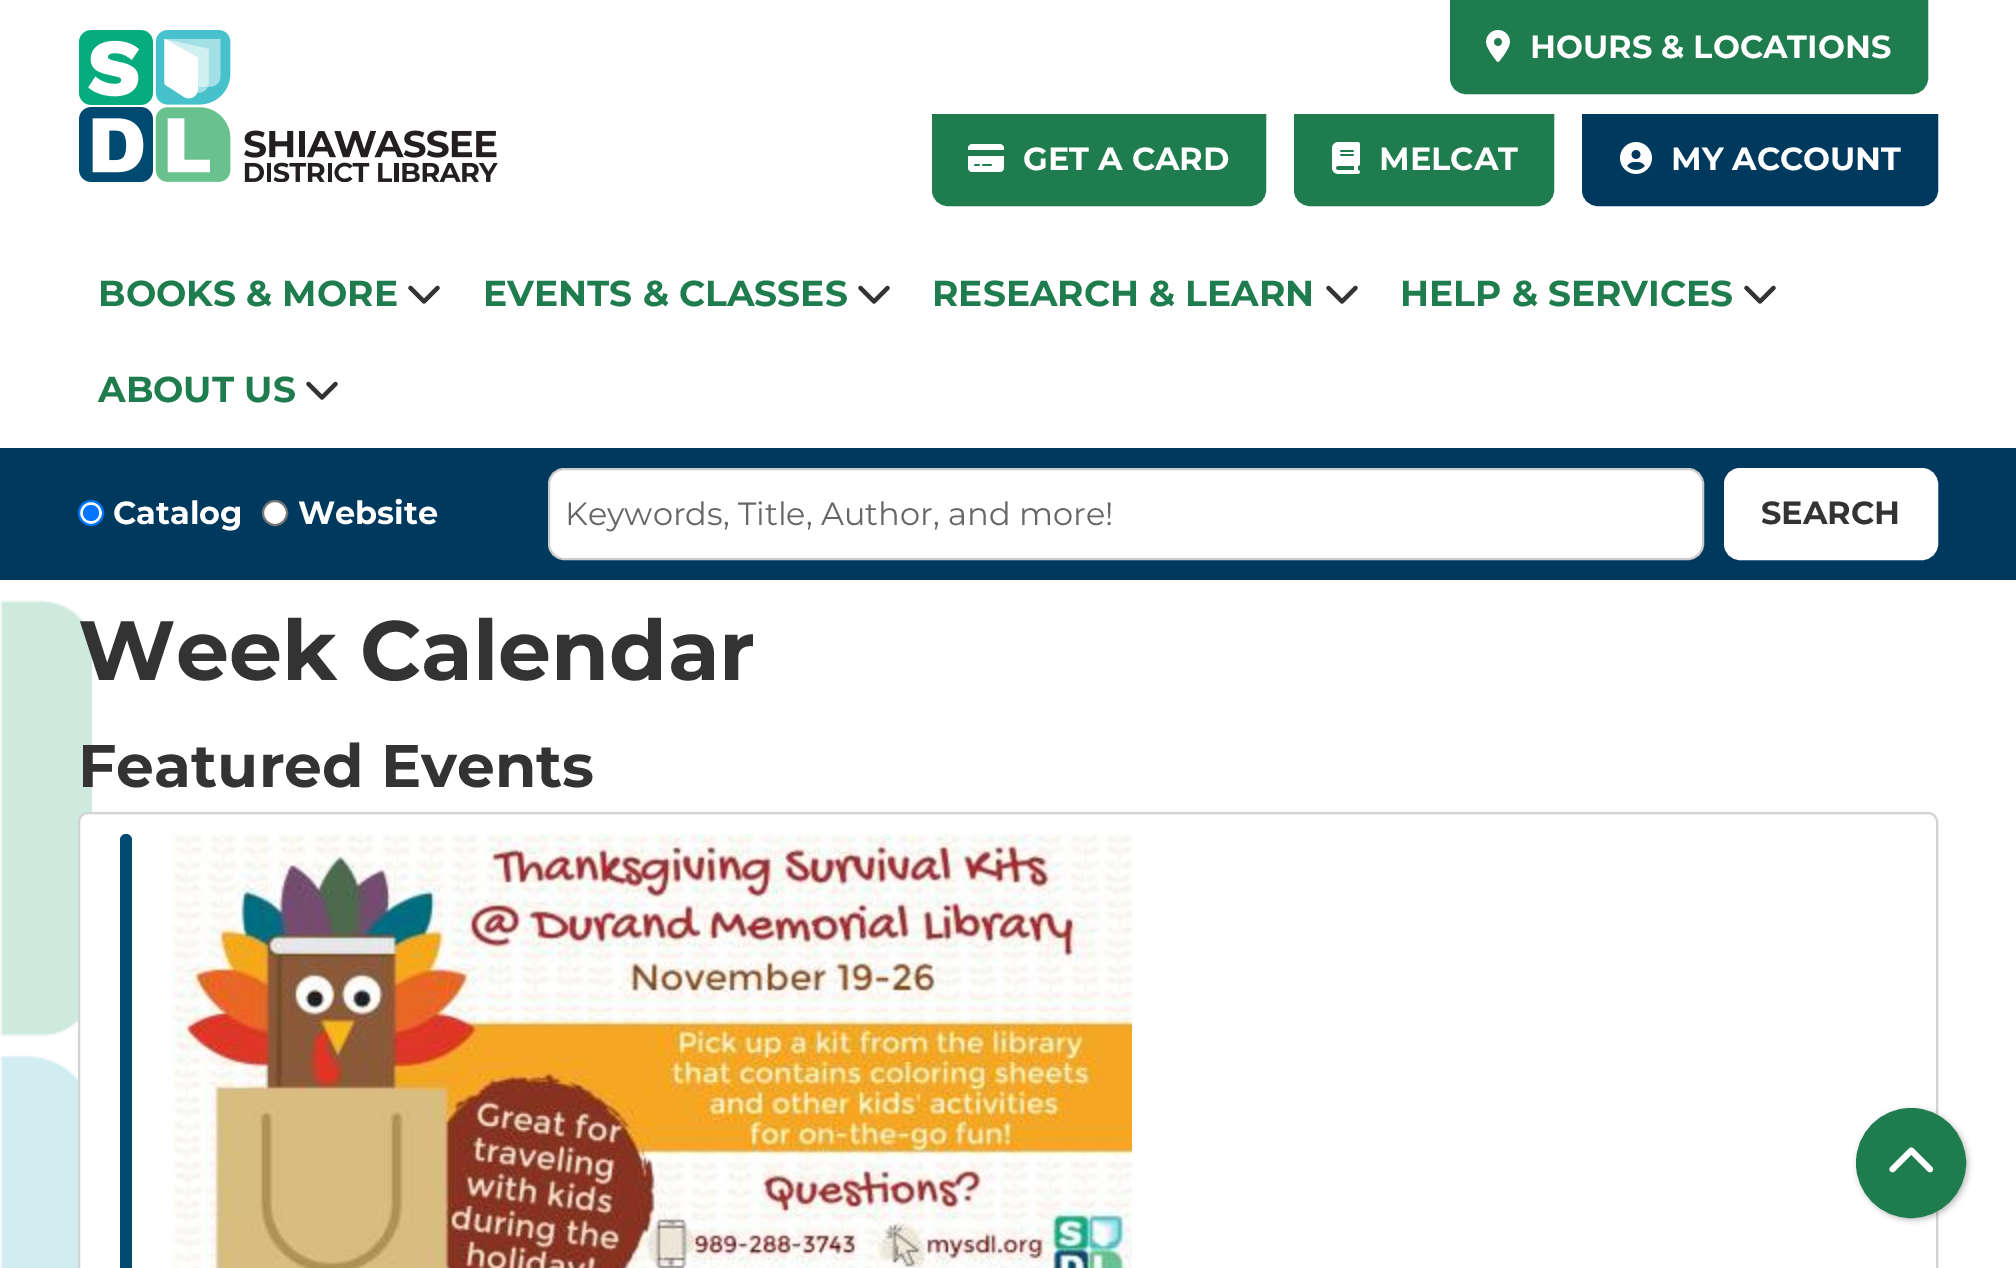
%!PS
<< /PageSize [2016 1268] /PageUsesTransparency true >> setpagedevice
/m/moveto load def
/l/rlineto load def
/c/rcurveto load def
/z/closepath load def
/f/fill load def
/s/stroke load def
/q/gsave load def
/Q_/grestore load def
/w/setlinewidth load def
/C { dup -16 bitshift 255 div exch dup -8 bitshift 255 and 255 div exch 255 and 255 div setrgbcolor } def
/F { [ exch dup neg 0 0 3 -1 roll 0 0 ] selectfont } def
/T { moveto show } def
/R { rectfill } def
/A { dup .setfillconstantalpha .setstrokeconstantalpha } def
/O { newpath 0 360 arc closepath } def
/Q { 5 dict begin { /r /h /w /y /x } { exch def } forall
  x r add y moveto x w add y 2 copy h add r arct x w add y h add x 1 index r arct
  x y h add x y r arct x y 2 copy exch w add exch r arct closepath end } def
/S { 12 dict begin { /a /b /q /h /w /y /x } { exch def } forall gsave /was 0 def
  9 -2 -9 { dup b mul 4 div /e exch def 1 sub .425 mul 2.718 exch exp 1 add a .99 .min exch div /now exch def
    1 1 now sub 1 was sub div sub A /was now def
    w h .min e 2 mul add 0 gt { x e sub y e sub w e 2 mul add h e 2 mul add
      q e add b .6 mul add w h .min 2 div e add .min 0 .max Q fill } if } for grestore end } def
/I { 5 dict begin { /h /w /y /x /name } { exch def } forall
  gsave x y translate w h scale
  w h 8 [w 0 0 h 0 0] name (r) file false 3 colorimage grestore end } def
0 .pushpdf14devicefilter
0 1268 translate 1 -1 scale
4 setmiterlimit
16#FFFFFF C
0 0 2016 1268 R
(1.rgb) 79 30 419 152 I
16#1F7C4E C
1451 1 m 476 0 l 0 77 l 0 8.5 -6.5 15 -15 15 c -446 0 l -8.5 0 -15 -6.5 -15 -15 c z q f Q_
2 w
s
(2.rgb) 1486 30 24 32 I
/Montserrat-Bold 32 F
16#FFFFFF C
(HOURS & LOCATIONS) 1530 58 T
16#1F7C4E C
933 115 m 332 0 l 0 75 l 0 8.5 -6.5 15 -15 15 c -302 0 l -8.5 0 -15 -6.5 -15 -15 c z q f Q_
s
(3.rgb) 968 144 36 28 I
16#FFFFFF C
(GET A CARD) 1023 170 T
16#1F7C4E C
1295 115 m 258 0 l 0 75 l 0 8.5 -6.5 15 -15 15 c -228 0 l -8.5 0 -15 -6.5 -15 -15 c z q f Q_
s
(4.rgb) 1332 142 28 32 I
16#FFFFFF C
(MELCAT) 1379 170 T
16#00395E C
1583 115 m 354 0 l 0 75 l 0 8.5 -6.5 15 -15 15 c -324 0 l -8.5 0 -15 -6.5 -15 -15 c z q f Q_
s
(5.rgb) 1620 142 32 32 I
16#FFFFFF C
(MY ACCOUNT) 1671 170 T
/Montserrat-Bold 36 F
16#1F7C4E C
(BOOKS & MORE) 98 306 T
(6.rgb) 408 285 32 19 I
(EVENTS & CLASSES) 483 306 T
(6.rgb) 858 285 32 19 I
(RESEARCH & LEARN) 932 306 T
(6.rgb) 1326 285 32 19 I
(HELP & SERVICES) 1400 306 T
(6.rgb) 1744 285 32 19 I
(ABOUT US) 98 402 T
(6.rgb) 306 381 32 19 I
16#00395E C
0 448 2016 132 R
16#FFFFFF C
91 513 12 O q f Q_
16#0075FF C
s
91 513 8 O f
/Montserrat-Bold 32 F
16#FFFFFF C
(Catalog) 113 524 T
275 513 12 O q f Q_
16#767676 C
s
16#FFFFFF C
(Website) 298 524 T
549 469 1154 90 15 Q q f Q_
16#CCCCCC C
s
/Montserrat-Regular 32 F
16#666666 C
(Keywords, Title, Author, and more!) 565 525 T
16#FFFFFF C
1725 469 212 90 15 Q q f Q_
s
/Montserrat-Bold 32 F
16#333333 C
(SEARCH) 1761 524 T
(7.rgb) 0 600 92 668 I
/Montserrat-Bold 84 F
(Week Calendar) 78 680 T
/Montserrat-Bold 60 F
(Featured Events) 78 787 T
16#FFFFFF C
79 813 1858 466 9 Q q f Q_
16#D2D3D5 C
s
16#004971 C
120 834 12 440 6 Q f
(8.rgb) 172 834 960 434 I
16#000000 C
1858 1110 110 110 55 3 .25 S
16#1F7C4E C
1911 1163 54 O q f Q_
s
(9.rgb) 1889 1147 45 26 I
.poppdf14devicefilter showpage
